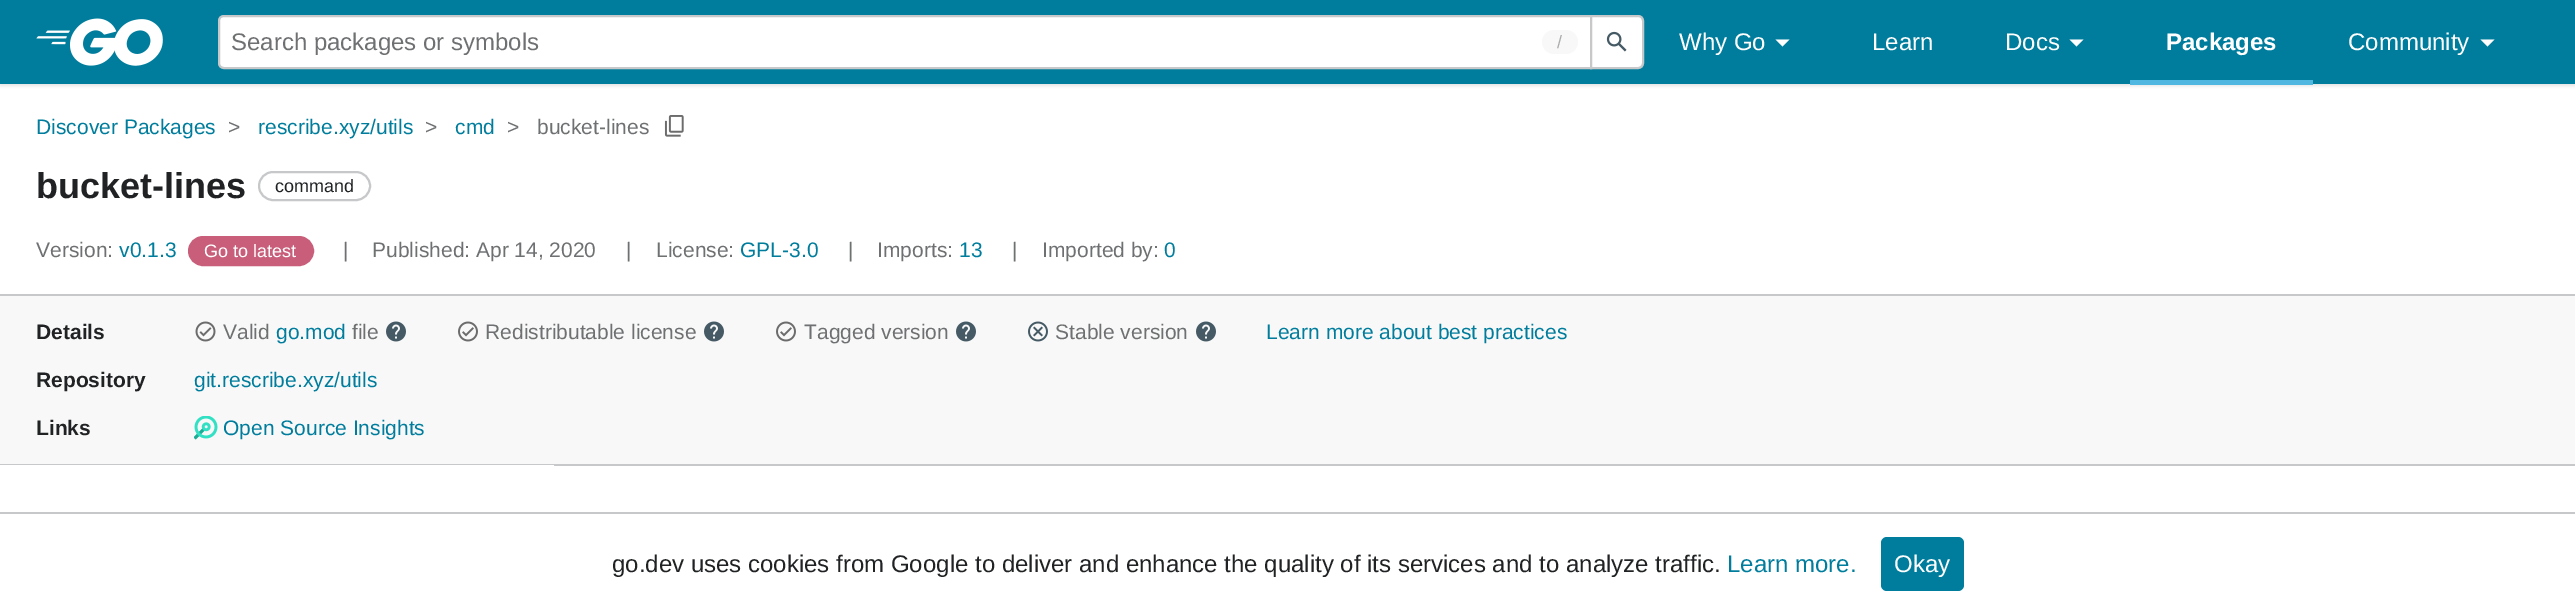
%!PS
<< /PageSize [2575 615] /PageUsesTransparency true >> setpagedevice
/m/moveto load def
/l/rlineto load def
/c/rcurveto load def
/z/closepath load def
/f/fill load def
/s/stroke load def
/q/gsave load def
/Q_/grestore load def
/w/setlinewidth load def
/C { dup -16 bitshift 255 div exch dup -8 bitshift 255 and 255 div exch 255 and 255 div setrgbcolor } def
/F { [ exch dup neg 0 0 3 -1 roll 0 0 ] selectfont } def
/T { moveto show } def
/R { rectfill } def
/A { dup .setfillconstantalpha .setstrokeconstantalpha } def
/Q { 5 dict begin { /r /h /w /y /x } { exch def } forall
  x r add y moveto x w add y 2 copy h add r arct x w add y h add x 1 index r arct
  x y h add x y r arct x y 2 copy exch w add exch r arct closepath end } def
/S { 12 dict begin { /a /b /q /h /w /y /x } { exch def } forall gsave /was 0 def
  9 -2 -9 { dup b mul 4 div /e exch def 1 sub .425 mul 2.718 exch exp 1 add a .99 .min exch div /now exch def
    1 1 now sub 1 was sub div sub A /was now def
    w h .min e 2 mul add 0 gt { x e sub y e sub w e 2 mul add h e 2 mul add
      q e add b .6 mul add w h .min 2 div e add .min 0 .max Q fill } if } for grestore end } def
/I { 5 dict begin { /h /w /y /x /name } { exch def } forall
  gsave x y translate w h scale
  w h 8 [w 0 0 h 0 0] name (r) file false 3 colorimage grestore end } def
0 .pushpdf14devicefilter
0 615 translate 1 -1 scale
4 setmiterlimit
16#FFFFFF C
0 0 2575 615 R
16#ABABAB C
0 2 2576 84 0 1.5 .3 S
16#007D9C C
0 0 2575 84 R
(1.rgb) 36 18 127 48 I
16#FFFFFF C
224 16 m 1367 0 l 0 52 l -1367 0 l -3 0 -5 -2 -5 -5 c 0 -42 l 0 -3 2 -5 5 -5 c z q f Q_
16#C6C8CA C
2 w
s
/LiberationSans-Regular 24 F
16#6E7072 C
(Search packages or symbols) 231 50 T
16#F8F8F8 C
1542 30 36 24 12 Q f
/LiberationSans-Regular 18 F
16#AAACAE C
(/) 1557 48 T
16#FFFFFF C
1591 16 m 47 0 l 3 0 5 2 5 5 c 0 42 l 0 3 -2 5 -5 5 c -47 0 l z q f Q_
16#C6C8CA C
s
(2.rgb) 1606 31 21 21 I
/LiberationSans-Regular 24 F
16#FFFFFF C
(Why Go) 1679 50 T
1775.5 39.5 m 7 7 l 7 -7 l z f
(Learn) 1872 50 T
(Docs) 2005 50 T
2069.5 39.5 m 7 7 l 7 -7 l z f
16#50B7E0 C
2130 80 183 5 R
/LiberationSans-Bold 24 F
16#FFFFFF C
(Packages) 2166 50 T
/LiberationSans-Regular 24 F
(Community) 2348 50 T
2480.5 39.5 m 7 7 l 7 -7 l z f
16#C6C8CA C
0 294 2575 2 R
/LiberationSans-Regular 21 F
16#007D9C C
(Discover Packages) 36 134 T
16#6E7072 C
(>) 228 134 T
16#007D9C C
(rescribe.xyz/utils) 258 134 T
16#6E7072 C
(>) 425 134 T
16#007D9C C
(cmd) 455 134 T
16#6E7072 C
(>) 507 134 T
(bucket-lines) 537 134 T
(3.rgb) 664 115 20 22 I
/LiberationSans-Bold 36 F
16#202224 C
(bucket-lines) 36 198 T
16#C6C8CA C
259 172 111 28 14 Q s
/LiberationSans-Regular 18 F
16#202224 C
(command) 275 192 T
/LiberationSans-Regular 21 F
16#6E7072 C
(Version:) 36 257 T
16#007D9C C
(v0.1.3) 119 257 T
16#C85E7A C
189 237 124 28 14 Q q f Q_
s
/LiberationSans-Regular 18 F
16#FFFFFF C
(Go to latest) 204 257 T
/LiberationSans-Regular 21 F
16#6E7072 C
(|) 343 257 T
(Published: Apr 14, 2020) 372 257 T
(|) 626 257 T
(License:) 656 257 T
16#007D9C C
(GPL-3.0) 740 257 T
16#6E7072 C
(|) 848 257 T
(Imports:) 877 257 T
16#007D9C C
(13) 959 257 T
16#6E7072 C
(|) 1012 257 T
(Imported by:) 1042 257 T
16#007D9C C
(0) 1164 257 T
16#F8F8F8 C
0 296 2575 168 R
16#C6C8CA C
0 464 2575 2 R
/LiberationSans-Bold 21 F
16#202224 C
(Details) 36 339 T
(4.rgb) 195 321 21 21 I
/LiberationSans-Regular 21 F
16#6E7072 C
(Valid) 223 339 T
16#007D9C C
(go.mod) 276 339 T
16#6E7072 C
(file) 352 339 T
(5.rgb) 386 321 20 21 I
(6.rgb) 458 321 20 21 I
(Redistributable license) 485 339 T
(5.rgb) 704 321 20 21 I
(6.rgb) 776 321 20 21 I
(Tagged version) 804 339 T
(5.rgb) 956 321 20 21 I
(7.rgb) 1028 321 20 21 I
(Stable version) 1055 339 T
(5.rgb) 1196 321 20 21 I
16#007D9C C
(Learn more about best practices) 1266 339 T
/LiberationSans-Bold 21 F
16#202224 C
(Repository) 36 387 T
/LiberationSans-Regular 21 F
16#007D9C C
(git.rescribe.xyz/utils) 194 387 T
/LiberationSans-Bold 21 F
16#202224 C
(Links) 36 435 T
(8.rgb) 194 416 24 24 I
/LiberationSans-Regular 21 F
16#007D9C C
(Open Source Insights) 223 435 T
16#FFFFFF C
0 465 554 1 R
16#C6C8CA C
0 512 2575 2 R
/LiberationSans-Regular 24 F
16#202224 C
(go.dev uses cookies from Google to deliver and enhance the quality of its services and to analyze traffic.) 612 572 T
16#007D9C C
(Learn more.) 1727 572 T
1881 537 83 54 6 Q f
16#FFFFFF C
(Okay) 1894 572 T
.poppdf14devicefilter showpage
